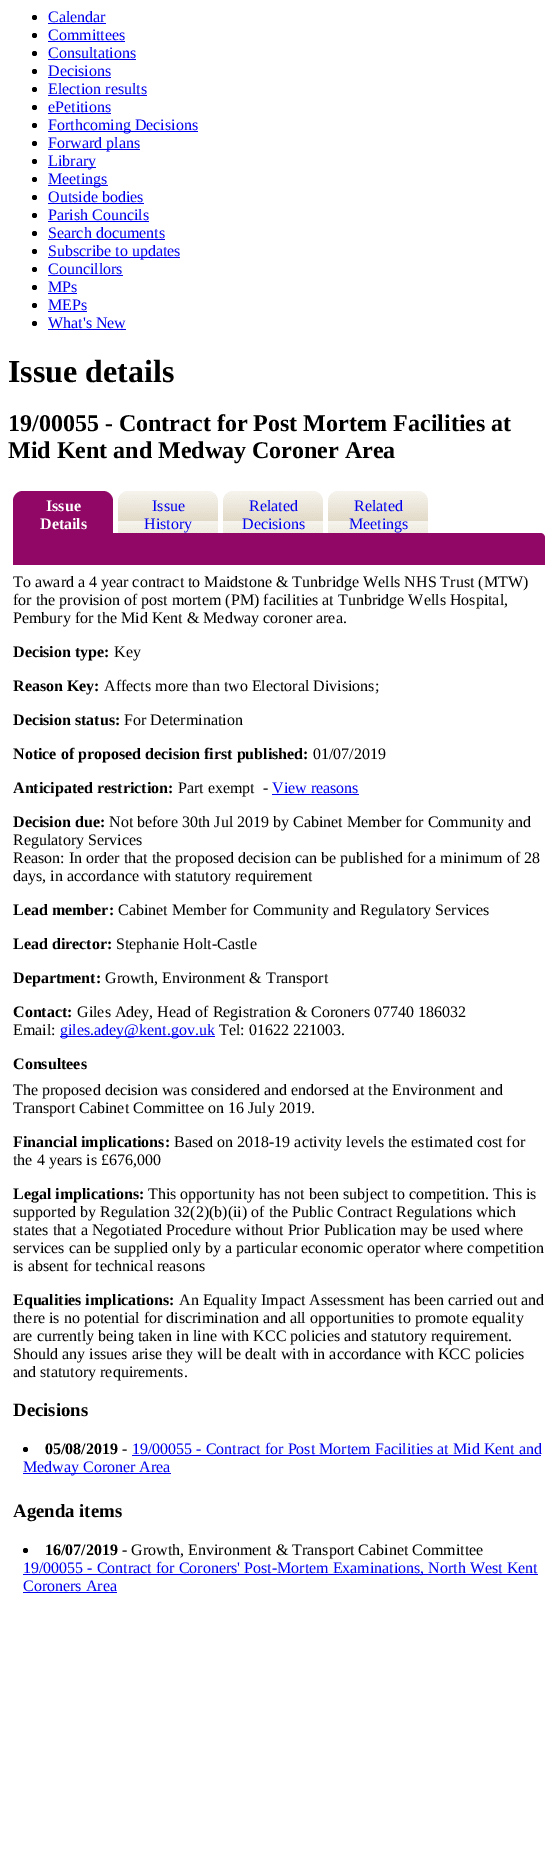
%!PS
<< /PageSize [553 1850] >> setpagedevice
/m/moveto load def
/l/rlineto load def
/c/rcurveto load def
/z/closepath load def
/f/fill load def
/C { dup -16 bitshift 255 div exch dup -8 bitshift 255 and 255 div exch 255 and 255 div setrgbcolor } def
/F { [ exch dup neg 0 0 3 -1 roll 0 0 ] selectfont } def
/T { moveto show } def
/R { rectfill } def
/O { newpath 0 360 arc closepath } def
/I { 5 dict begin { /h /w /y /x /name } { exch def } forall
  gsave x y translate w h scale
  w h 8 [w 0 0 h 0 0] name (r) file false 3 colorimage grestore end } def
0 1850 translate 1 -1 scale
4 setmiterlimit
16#FFFFFF C
0 0 553 1850 R
16#000000 C
34.5 17.5 2.5 O f
/LiberationSerif-Regular 16 F
16#0000EE C
(Calendar) 48 22 T
48 23 58 1 R
16#000000 C
34.5 35.5 2.5 O f
16#0000EE C
(Committees) 48 40 T
48 41 77 1 R
16#000000 C
34.5 53.5 2.5 O f
16#0000EE C
(Consultations) 48 58 T
48 59 88 1 R
16#000000 C
34.5 71.5 2.5 O f
16#0000EE C
(Decisions) 48 76 T
48 77 63 1 R
16#000000 C
34.5 89.5 2.5 O f
16#0000EE C
(Election results) 48 94 T
48 95 99 1 R
16#000000 C
34.5 107.5 2.5 O f
16#0000EE C
(ePetitions) 48 112 T
48 113 63 1 R
16#000000 C
34.5 125.5 2.5 O f
16#0000EE C
48 131 150 1 R
(Forthcoming Decisions) 48 130 T
16#000000 C
34.5 143.5 2.5 O f
16#0000EE C
48 149 92 1 R
(Forward plans) 48 148 T
16#000000 C
34.5 161.5 2.5 O f
16#0000EE C
48 167 48 1 R
(Library) 48 166 T
16#000000 C
34.5 179.5 2.5 O f
16#0000EE C
48 185 60 1 R
(Meetings) 48 184 T
16#000000 C
34.5 197.5 2.5 O f
16#0000EE C
(Outside bodies) 48 202 T
48 203 96 1 R
16#000000 C
34.5 215.5 2.5 O f
16#0000EE C
(Parish Councils) 48 220 T
48 221 101 1 R
16#000000 C
34.5 233.5 2.5 O f
16#0000EE C
(Search documents) 48 238 T
48 239 117 1 R
16#000000 C
34.5 251.5 2.5 O f
16#0000EE C
48 257 132 1 R
(Subscribe to updates) 48 256 T
16#000000 C
34.5 269.5 2.5 O f
16#0000EE C
(Councillors) 48 274 T
48 275 75 1 R
16#000000 C
34.5 287.5 2.5 O f
16#0000EE C
(MPs) 48 292 T
48 293 29 1 R
16#000000 C
34.5 305.5 2.5 O f
16#0000EE C
(MEPs) 48 310 T
48 311 39 1 R
16#000000 C
34.5 323.5 2.5 O f
16#0000EE C
(What's New) 48 328 T
48 329 78 1 R
/LiberationSerif-Bold 32 F
16#000000 C
(Issue details) 8 382 T
/LiberationSerif-Bold 24 F
(19/00055 - Contract for Post Mortem Facilities at) 8 431 T
(Mid Kent and Medway Coroner Area) 8 458 T
16#910766 C
23 491 m 80 0 l 5.5 0 10 4.5 10 10 c 0 32 l -100 0 l 0 -32 l 0 -5.5 4.5 -10 10 -10 c z f
/LiberationSerif-Bold 16 F
16#FFFFFF C
(Issue) 46 511 T
(Details) 40 529 T
16#F3F3F3 C
128 491 m 80 0 l 5.5 0 10 4.5 10 10 c 0 32 l -100 0 l 0 -32 l 0 -5.5 4.5 -10 10 -10 c z f
(1.rgb) 118 491 100 42 I
/LiberationSerif-Regular 16 F
16#0000EE C
(Issue) 152 511 T
(History) 144 529 T
16#F3F3F3 C
233 491 m 80 0 l 5.5 0 10 4.5 10 10 c 0 32 l -100 0 l 0 -32 l 0 -5.5 4.5 -10 10 -10 c z f
(1.rgb) 223 491 100 42 I
16#0000EE C
(Related) 249 511 T
(Decisions) 242 529 T
16#F3F3F3 C
338 491 m 80 0 l 5.5 0 10 4.5 10 10 c 0 32 l -100 0 l 0 -32 l 0 -5.5 4.5 -10 10 -10 c z f
(1.rgb) 328 491 100 42 I
16#0000EE C
(Related) 354 511 T
(Meetings) 349 529 T
16#910766 C
13 533 m 527 0 l 3 0 5 2 5 5 c 0 27 l -532 0 l z f
16#000000 C
(To award a 4 year contract to Maidstone & Tunbridge Wells NHS Trust \(MTW\)) 13 587 T
(for the provision of post mortem \(PM\) facilities at Tunbridge Wells Hospital,) 13 605 T
(Pembury for the Mid Kent & Medway coroner area.) 13 623 T
/LiberationSerif-Bold 16 F
(Decision type:) 13 657 T
/LiberationSerif-Regular 16 F
(Key) 114 657 T
/LiberationSerif-Bold 16 F
(Reason Key:) 13 691 T
/LiberationSerif-Regular 16 F
(Affects more than two Electoral Divisions;) 104 691 T
/LiberationSerif-Bold 16 F
(Decision status:) 13 725 T
/LiberationSerif-Regular 16 F
(For Determination) 124 725 T
/LiberationSerif-Bold 16 F
(Notice of proposed decision first published:) 13 759 T
/LiberationSerif-Regular 16 F
(01/07/2019) 313 759 T
/LiberationSerif-Bold 16 F
(Anticipated restriction:) 13 793 T
/LiberationSerif-Regular 16 F
(Part exempt) 178 793 T
(-) 263 793 T
16#0000EE C
(View reasons) 272 793 T
272 794 87 1 R
/LiberationSerif-Bold 16 F
16#000000 C
(Decision due:) 13 827 T
/LiberationSerif-Regular 16 F
(Not before 30th Jul 2019 by Cabinet Member for Community and) 109 827 T
(Regulatory Services) 13 845 T
(Reason: In order that the proposed decision can be published for a minimum of 28) 13 863 T
(days, in accordance with statutory requirement) 13 881 T
/LiberationSerif-Bold 16 F
(Lead member:) 13 915 T
/LiberationSerif-Regular 16 F
(Cabinet Member for Community and Regulatory Services) 118 915 T
/LiberationSerif-Bold 16 F
(Lead director:) 13 949 T
/LiberationSerif-Regular 16 F
(Stephanie Holt-Castle) 116 949 T
/LiberationSerif-Bold 16 F
(Department:) 13 983 T
/LiberationSerif-Regular 16 F
(Growth, Environment & Transport) 105 983 T
/LiberationSerif-Bold 16 F
(Contact:) 13 1017 T
/LiberationSerif-Regular 16 F
(Giles Adey, Head of Registration & Coroners 07740 186032) 77 1017 T
(Email:) 13 1035 T
16#0000EE C
60 1036 155 1 R
(giles.adey@kent.gov.uk) 60 1035 T
16#000000 C
(Tel: 01622 221003.) 219 1035 T
/LiberationSerif-Bold 16 F
(Consultees) 13 1069 T
/LiberationSerif-Regular 16 F
(The proposed decision was considered and endorsed at the Environment and) 13 1095 T
(Transport Cabinet Committee on 16 July 2019.) 13 1113 T
/LiberationSerif-Bold 16 F
(Financial implications:) 13 1147 T
/LiberationSerif-Regular 16 F
(Based on 2018-19 activity levels the estimated cost for) 174 1147 T
(the 4 years is £676,000) 13 1165 T
/LiberationSerif-Bold 16 F
(Legal implications:) 13 1199 T
/LiberationSerif-Regular 16 F
(This opportunity has not been subject to competition. This is) 148 1199 T
(supported by Regulation 32\(2\)\(b\)\(ii\) of the Public Contract Regulations which) 13 1217 T
(states that a Negotiated Procedure without Prior Publication may be used where) 13 1235 T
(services can be supplied only by a particular economic operator where competition) 13 1253 T
(is absent for technical reasons) 13 1271 T
/LiberationSerif-Bold 16 F
(Equalities implications:) 13 1305 T
/LiberationSerif-Regular 16 F
(An Equality Impact Assessment has been carried out and) 179 1305 T
(there is no potential for discrimination and all opportunities to promote equality) 13 1323 T
(are currently being taken in line with KCC policies and statutory requirement.) 13 1341 T
(Should any issues arise they will be dealt with in accordance with KCC policies) 13 1359 T
(and statutory requirements.) 13 1377 T
/LiberationSerif-Bold 18.75 F
(Decisions) 13 1416 T
25.5 1449.5 2.5 O f
/LiberationSerif-Bold 16 F
(05/08/2019) 45 1454 T
/LiberationSerif-Regular 16 F
(-) 122 1454 T
16#0000EE C
(19/00055 - Contract for Post Mortem Facilities at Mid Kent and) 132 1454 T
132 1455 409 1 R
23 1473 148 1 R
(Medway Coroner Area) 23 1472 T
/LiberationSerif-Bold 18.75 F
16#000000 C
(Agenda items) 13 1517 T
25.5 1550.5 2.5 O f
/LiberationSerif-Bold 16 F
(16/07/2019) 45 1555 T
/LiberationSerif-Regular 16 F
(- Growth, Environment & Transport Cabinet Committee) 122 1555 T
16#0000EE C
23 1574 515 1 R
(19/00055 - Contract for Coroners' Post-Mortem Examinations, North West Kent) 23 1573 T
(Coroners Area) 23 1591 T
23 1592 94 1 R
showpage
